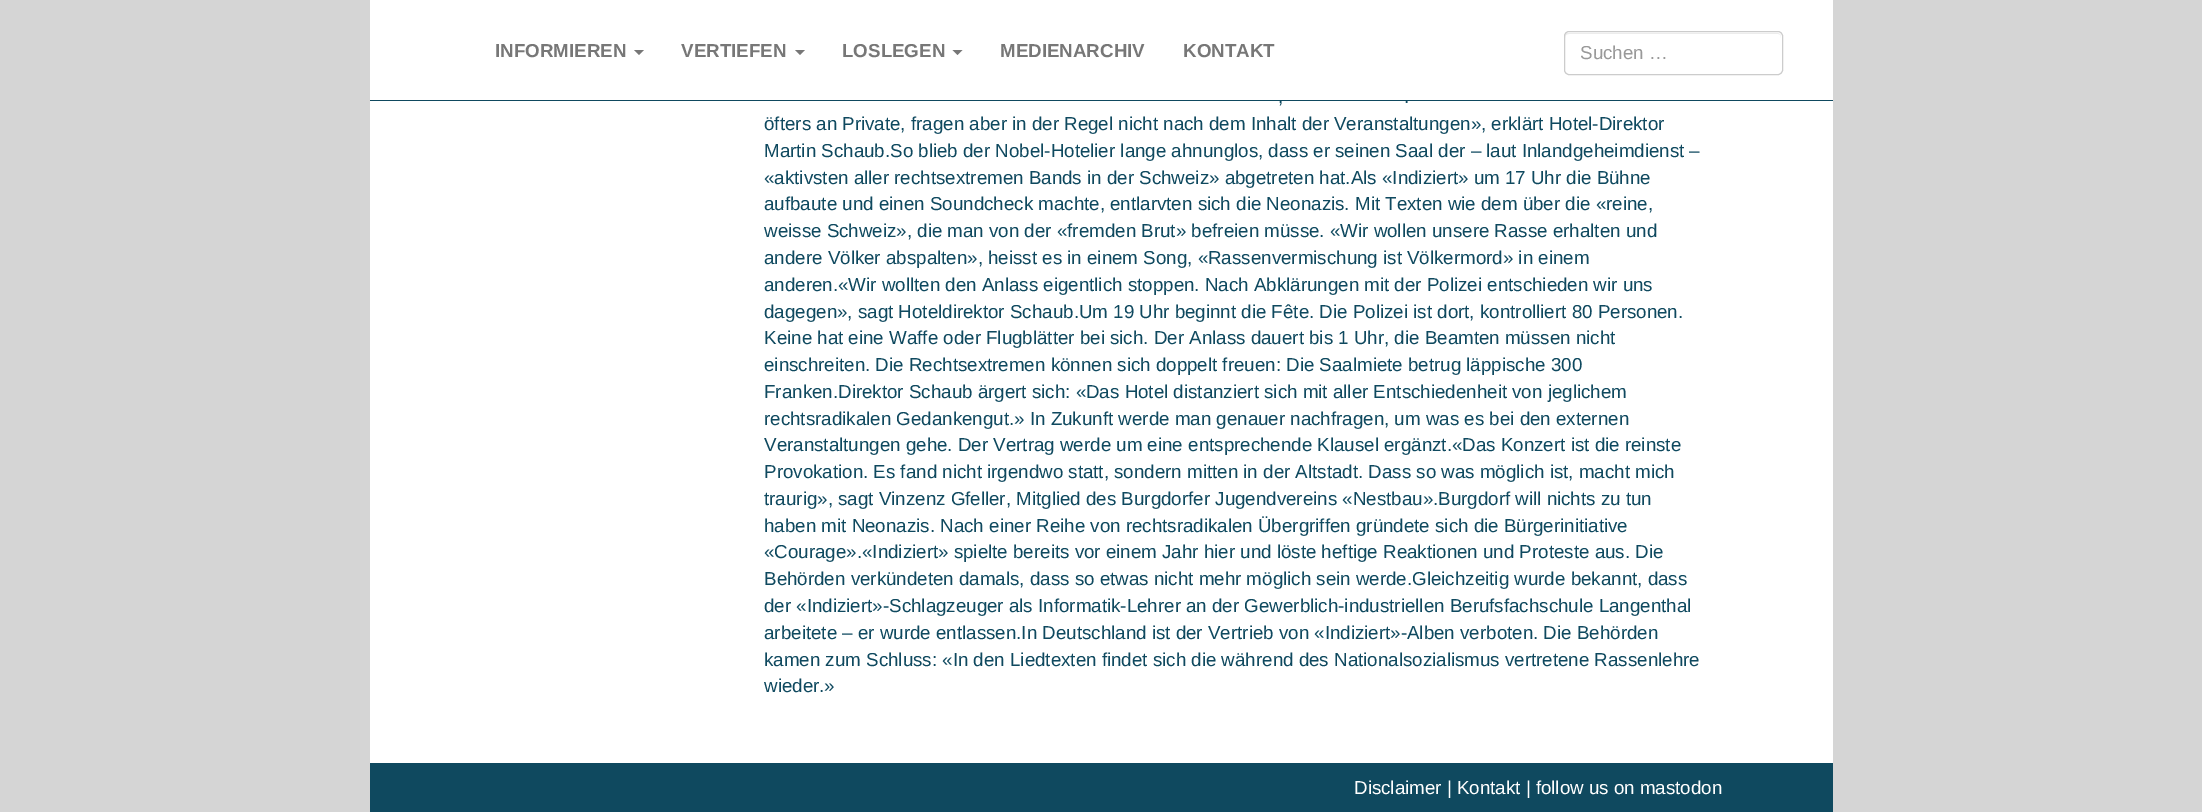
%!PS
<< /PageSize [2202 812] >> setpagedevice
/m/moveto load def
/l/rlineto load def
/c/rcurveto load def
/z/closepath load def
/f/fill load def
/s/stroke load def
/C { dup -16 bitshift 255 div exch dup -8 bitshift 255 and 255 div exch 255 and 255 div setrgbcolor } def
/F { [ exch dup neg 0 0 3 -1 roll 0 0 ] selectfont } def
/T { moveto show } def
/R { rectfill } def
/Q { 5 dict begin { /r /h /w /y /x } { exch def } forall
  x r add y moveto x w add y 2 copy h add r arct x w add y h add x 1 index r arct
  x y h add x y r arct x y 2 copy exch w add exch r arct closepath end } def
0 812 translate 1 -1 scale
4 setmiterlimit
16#D5D5D5 C
0 0 2202 812 R
16#FFFFFF C
370 0 1463 100 R
16#0F495F C
370 100 1463 1 R
/LiberationSans-Bold 18.75 F
16#777777 C
(INFORMIEREN) 495 57 T
634 50 m 10 0 l -5 5 l z f
(VERTIEFEN) 681 57 T
795 50 m 10 0 l -5 5 l z f
(LOSLEGEN) 842 57 T
952.5 50 m 10 0 l -5 5 l z f
(MEDIENARCHIV) 1000 57 T
(KONTAKT) 1183 57 T
16#ECECEC C
1569 34 m 209 0 l 2 0 3 1 3 4 c 0 -3 -1 -5 -4 -5 c -210 0 l -2 1 -2 3 -2 5 c 0 -3 2 -4 4 -4 c z f
16#CCCCCC C
1564.5 31.5 218 43 4.5 Q s
/LiberationSans-Regular 18.75 F
16#999999 C
(Suchen …) 1580 59 T
16#FFFFFF C
370 101 1463 662 R
16#0F495F C
(,) 1278 103 T
(.) 1404 103 T
(öfters an Private, fragen aber in der Regel nicht nach dem Inhalt der Veranstaltungen», erklärt Hotel-Direktor) 764 130 T
(Martin Schaub.So blieb der Nobel-Hotelier lange ahnunglos, dass er seinen Saal der – laut Inlandgeheimdienst –) 764 157 T
(«aktivsten aller rechtsextremen Bands in der Schweiz» abgetreten hat.Als «Indiziert» um 17 Uhr die Bühne) 764 184 T
(aufbaute und einen Soundcheck machte, entlarvten sich die Neonazis. Mit Texten wie dem über die «reine,) 764 210 T
(weisse Schweiz», die man von der «fremden Brut» befreien müsse. «Wir wollen unsere Rasse erhalten und) 764 237 T
(andere Völker abspalten», heisst es in einem Song, «Rassenvermischung ist Völkermord» in einem) 764 264 T
(anderen.«Wir wollten den Anlass eigentlich stoppen. Nach Abklärungen mit der Polizei entschieden wir uns) 764 291 T
(dagegen», sagt Hoteldirektor Schaub.Um 19 Uhr beginnt die Fête. Die Polizei ist dort, kontrolliert 80 Personen.) 764 318 T
(Keine hat eine Waffe oder Flugblätter bei sich. Der Anlass dauert bis 1 Uhr, die Beamten müssen nicht) 764 344 T
(einschreiten. Die Rechtsextremen können sich doppelt freuen: Die Saalmiete betrug läppische 300) 764 371 T
(Franken.Direktor Schaub ärgert sich: «Das Hotel distanziert sich mit aller Entschiedenheit von jeglichem) 764 398 T
(rechtsradikalen Gedankengut.» In Zukunft werde man genauer nachfragen, um was es bei den externen) 764 425 T
(Veranstaltungen gehe. Der Vertrag werde um eine entsprechende Klausel ergänzt.«Das Konzert ist die reinste) 764 451 T
(Provokation. Es fand nicht irgendwo statt, sondern mitten in der Altstadt. Dass so was möglich ist, macht mich) 764 478 T
(traurig», sagt Vinzenz Gfeller, Mitglied des Burgdorfer Jugendvereins «Nestbau».Burgdorf will nichts zu tun) 764 505 T
(haben mit Neonazis. Nach einer Reihe von rechtsradikalen Übergriffen gründete sich die Bürgerinitiative) 764 532 T
(«Courage».«Indiziert» spielte bereits vor einem Jahr hier und löste heftige Reaktionen und Proteste aus. Die) 764 558 T
(Behörden verkündeten damals, dass so etwas nicht mehr möglich sein werde.Gleichzeitig wurde bekannt, dass) 764 585 T
(der «Indiziert»-Schlagzeuger als Informatik-Lehrer an der Gewerblich-industriellen Berufsfachschule Langenthal) 764 612 T
(arbeitete – er wurde entlassen.In Deutschland ist der Vertrieb von «Indiziert»-Alben verboten. Die Behörden) 764 639 T
(kamen zum Schluss: «In den Liedtexten findet sich die während des Nationalsozialismus vertretene Rassenlehre) 764 666 T
(wieder.») 764 692 T
370 763 1463 49 R
16#FFFFFF C
(Disclaimer | Kontakt | follow us on mastodon) 1354 794 T
showpage
